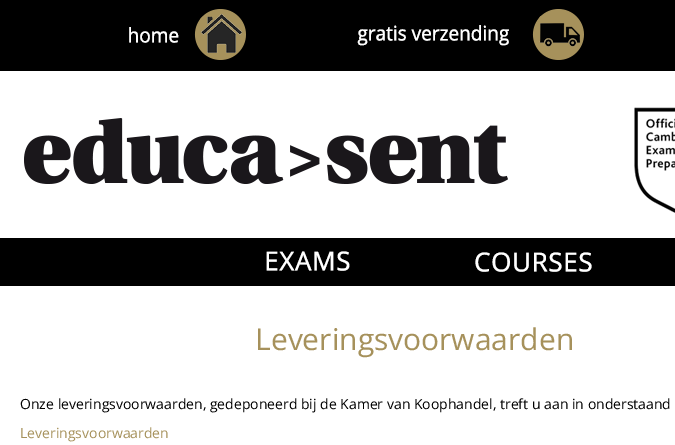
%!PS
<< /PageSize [675 445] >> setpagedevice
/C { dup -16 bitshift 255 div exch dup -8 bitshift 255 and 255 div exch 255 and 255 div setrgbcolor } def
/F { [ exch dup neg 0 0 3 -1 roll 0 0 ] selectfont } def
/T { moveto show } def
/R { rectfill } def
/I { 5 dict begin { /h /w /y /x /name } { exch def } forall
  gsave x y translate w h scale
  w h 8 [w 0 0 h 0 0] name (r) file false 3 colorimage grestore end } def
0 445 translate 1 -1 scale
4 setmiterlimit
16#FFFFFF C
0 0 675 445 R
(1.rgb) 0 0 675 286 I
(2.rgb) 129 9 117 51 I
(3.rgb) 357 29 18 17 I
(4.rgb) 375 25 125 19 I
(5.rgb) 500 9 84 51 I
(6.rgb) 24 107 651 106 I
(7.rgb) 266 251 84 20 I
(8.rgb) 475 252 117 20 I
/OpenSans-Regular 30 F
16#A6915B C
(Leveringsvoorwaarden) 255 350 T
/OpenSans-Regular 14 F
16#000000 C
(Onze leveringsvoorwaarden, gedeponeerd bij de Kamer van Koophandel, treft u aan in onderstaand) 20 409 T
16#A6915B C
(Leveringsvoorwaarden) 20 438 T
showpage
